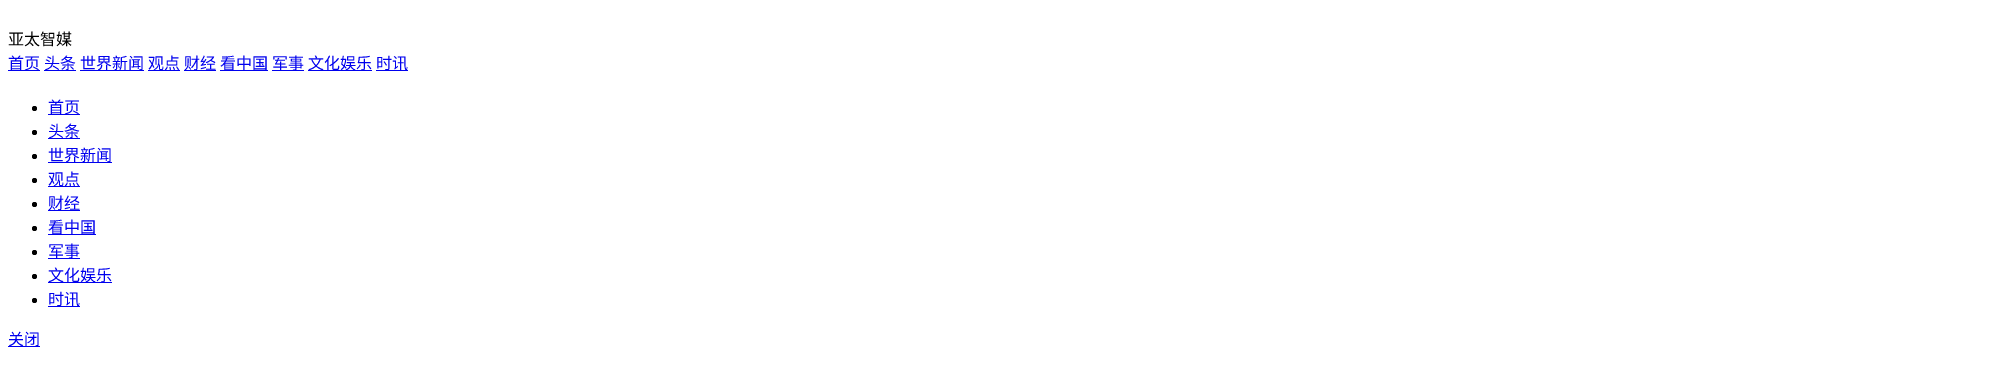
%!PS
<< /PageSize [2009 385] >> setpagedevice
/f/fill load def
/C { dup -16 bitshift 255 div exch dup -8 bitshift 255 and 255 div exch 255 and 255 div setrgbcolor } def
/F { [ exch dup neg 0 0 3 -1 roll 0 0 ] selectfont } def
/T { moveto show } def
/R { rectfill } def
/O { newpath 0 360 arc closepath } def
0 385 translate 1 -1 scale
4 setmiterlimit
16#FFFFFF C
0 0 2009 385 R
/NotoSansCJKSC-Regular 16 F
16#000000 C
(亚太智媒) 8 45 T
16#0000EE C
8 70 32 1 R
(首页) 8 69 T
44 70 32 1 R
(头条) 44 69 T
80 70 64 1 R
(世界新闻) 80 69 T
148 70 32 1 R
(观点) 148 69 T
184 70 32 1 R
(财经) 184 69 T
220 70 48 1 R
(看中国) 220 69 T
272 70 32 1 R
(军事) 272 69 T
308 70 64 1 R
(文化娱乐) 308 69 T
376 70 32 1 R
(时讯) 376 69 T
16#000000 C
34.5 108.5 2.5 O f
16#0000EE C
48 114 32 1 R
(首页) 48 113 T
16#000000 C
34.5 132.5 2.5 O f
16#0000EE C
48 138 32 1 R
(头条) 48 137 T
16#000000 C
34.5 156.5 2.5 O f
16#0000EE C
48 162 64 1 R
(世界新闻) 48 161 T
16#000000 C
34.5 180.5 2.5 O f
16#0000EE C
48 186 32 1 R
(观点) 48 185 T
16#000000 C
34.5 204.5 2.5 O f
16#0000EE C
48 210 32 1 R
(财经) 48 209 T
16#000000 C
34.5 228.5 2.5 O f
16#0000EE C
48 234 48 1 R
(看中国) 48 233 T
16#000000 C
34.5 252.5 2.5 O f
16#0000EE C
48 258 32 1 R
(军事) 48 257 T
16#000000 C
34.5 276.5 2.5 O f
16#0000EE C
48 282 64 1 R
(文化娱乐) 48 281 T
16#000000 C
34.5 300.5 2.5 O f
16#0000EE C
48 306 32 1 R
(时讯) 48 305 T
8 346 32 1 R
(关闭) 8 345 T
showpage
